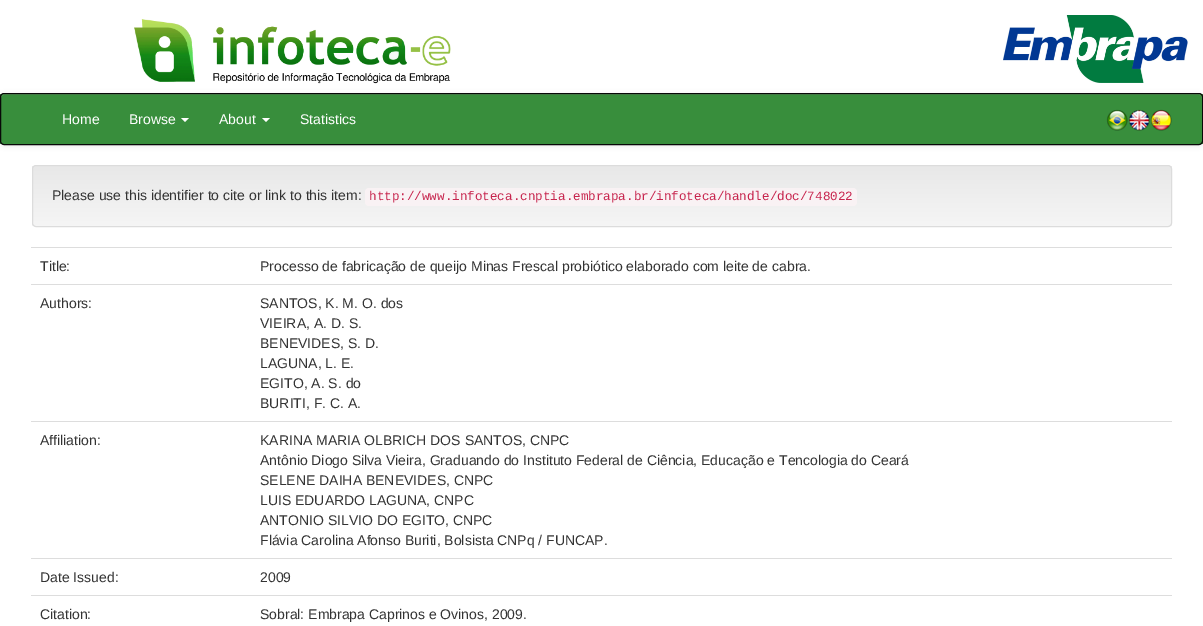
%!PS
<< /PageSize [1203 626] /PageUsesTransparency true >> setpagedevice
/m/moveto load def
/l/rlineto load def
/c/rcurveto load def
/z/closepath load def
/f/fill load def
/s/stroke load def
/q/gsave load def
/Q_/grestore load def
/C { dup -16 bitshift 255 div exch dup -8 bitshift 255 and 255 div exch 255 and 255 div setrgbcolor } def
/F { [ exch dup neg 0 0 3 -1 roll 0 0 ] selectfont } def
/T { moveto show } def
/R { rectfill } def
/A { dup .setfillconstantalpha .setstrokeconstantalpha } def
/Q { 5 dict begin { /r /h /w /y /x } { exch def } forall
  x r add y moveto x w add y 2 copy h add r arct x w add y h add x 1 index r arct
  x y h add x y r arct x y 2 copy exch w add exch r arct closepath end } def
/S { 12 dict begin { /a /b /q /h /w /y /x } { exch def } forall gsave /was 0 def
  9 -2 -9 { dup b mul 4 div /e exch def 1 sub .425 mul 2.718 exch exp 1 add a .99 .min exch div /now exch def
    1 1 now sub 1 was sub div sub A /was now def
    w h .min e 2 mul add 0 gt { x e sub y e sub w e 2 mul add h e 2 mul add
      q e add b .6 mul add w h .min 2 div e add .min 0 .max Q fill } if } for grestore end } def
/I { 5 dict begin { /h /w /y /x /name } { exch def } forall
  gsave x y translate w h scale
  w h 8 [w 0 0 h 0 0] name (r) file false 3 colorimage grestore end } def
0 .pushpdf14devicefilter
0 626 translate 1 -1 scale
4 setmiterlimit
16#FFFFFF C
0 0 1203 626 R
(1.rgb) 134 19 317 65 I
(2.rgb) 1003 15 185 68 I
16#000000 C
0 94 1203 52 4 2.5 .07 S
q
0 93 1203 52 4 Q clip newpath
16#388E3C C
0 94 1203 50 R
Q_
16#569F59 C
4 95 m 1195 0 l 2 0 3 1 3 3 c 0 -1 l 0 -2 -1 -3 -3 -3 c -1195 0 l -2 0 -3 1 -3 3 c 0 1 l 0 -2 1 -3 3 -3 c z f
16#080808 C
.5 93.5 1202 51 3.5 Q s
/LiberationSans-Regular 14 F
16#FFFFFF C
(Home) 62 124 T
(Browse) 129 124 T
181 118 m 8 0 l -4 4 l z f
(About) 219 124 T
262 118 m 8 0 l -4 4 l z f
(Statistics) 300 124 T
(3.rgb) 1106 109 22 22 I
(4.rgb) 1128 109 22 22 I
(5.rgb) 1150 109 22 22 I
q
32 165 1140 62 4 Q clip newpath
q 32 166 m 1140 0 l 0 60 l -1140 0 l z clip newpath
<< /ShadingType 2 /ColorSpace /DeviceRGB /Coords [602 166 602 226] /Extend [true true] /Function << /FunctionType 2 /Domain [0 1] /C0 [.91 .91 .91] /C1 [.961 .961 .961] /N 1 >> >> shfill Q_
Q_
16#DCDCDC C
32.5 165.5 1139 61 3.5 Q s
16#333333 C
(Please use this identifier to cite or link to this item:) 52 200 T
16#F9F2F4 C
365 188 492 18 4 Q f
/LiberationMono-Regular 12.6 F
16#C7254E C
(http://www.infoteca.cnptia.embrapa.br/infoteca/handle/doc/748022) 369 200 T
/LiberationSans-Regular 14 F
16#333333 C
(Title:) 40 271 T
16#DDDDDD C
31 247 1141 1 R
16#333333 C
(Processo de fabricação de queijo Minas Frescal probiótico elaborado com leite de cabra.) 260 271 T
(Authors:) 40 308 T
16#DDDDDD C
31 284 1141 1 R
16#333333 C
(SANTOS, K. M. O. dos) 260 308 T
(VIEIRA, A. D. S.) 260 328 T
(BENEVIDES, S. D.) 260 348 T
(LAGUNA, L. E.) 260 368 T
(EGITO, A. S. do) 260 388 T
(BURITI, F. C. A.) 260 408 T
(Affiliation:) 40 445 T
16#DDDDDD C
31 421 1141 1 R
16#333333 C
(KARINA MARIA OLBRICH DOS SANTOS, CNPC) 260 445 T
(Antônio Diogo Silva Vieira, Graduando do Instituto Federal de Ciência, Educação e Tencologia do Ceará) 260 465 T
(SELENE DAIHA BENEVIDES, CNPC) 260 485 T
(LUIS EDUARDO LAGUNA, CNPC) 260 505 T
(ANTONIO SILVIO DO EGITO, CNPC) 260 525 T
(Flávia Carolina Afonso Buriti, Bolsista CNPq / FUNCAP.) 260 545 T
(Date Issued:) 40 582 T
16#DDDDDD C
31 558 1141 1 R
16#333333 C
(2009) 260 582 T
(Citation:) 40 619 T
16#DDDDDD C
31 595 1141 1 R
16#333333 C
(Sobral: Embrapa Caprinos e Ovinos, 2009.) 260 619 T
.poppdf14devicefilter showpage
